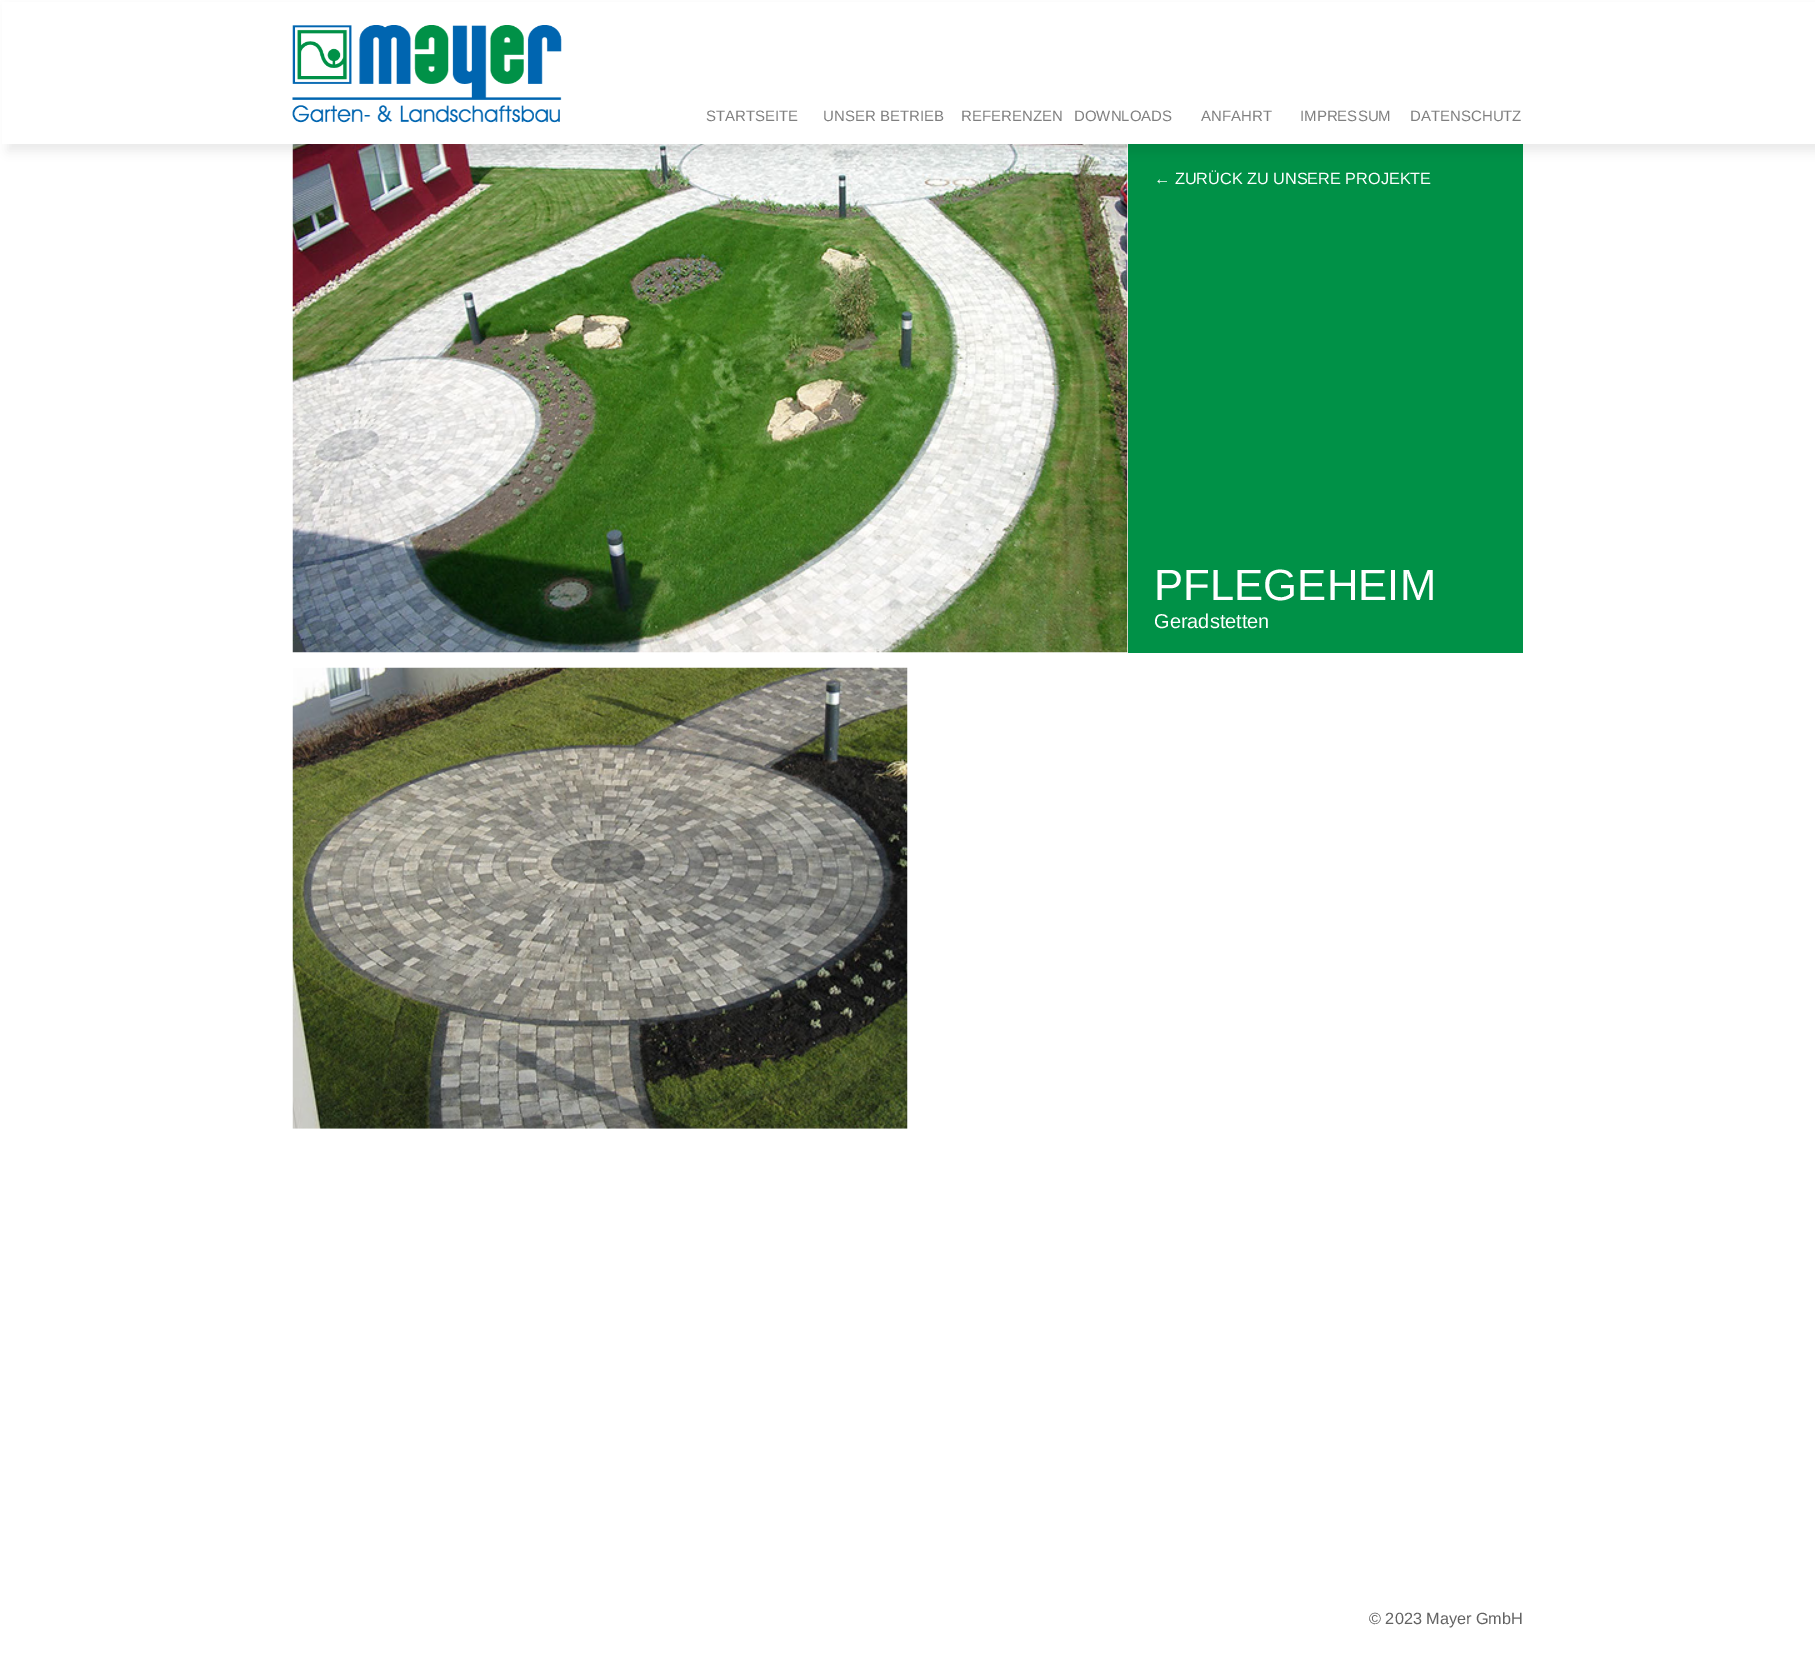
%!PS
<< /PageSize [1815 1655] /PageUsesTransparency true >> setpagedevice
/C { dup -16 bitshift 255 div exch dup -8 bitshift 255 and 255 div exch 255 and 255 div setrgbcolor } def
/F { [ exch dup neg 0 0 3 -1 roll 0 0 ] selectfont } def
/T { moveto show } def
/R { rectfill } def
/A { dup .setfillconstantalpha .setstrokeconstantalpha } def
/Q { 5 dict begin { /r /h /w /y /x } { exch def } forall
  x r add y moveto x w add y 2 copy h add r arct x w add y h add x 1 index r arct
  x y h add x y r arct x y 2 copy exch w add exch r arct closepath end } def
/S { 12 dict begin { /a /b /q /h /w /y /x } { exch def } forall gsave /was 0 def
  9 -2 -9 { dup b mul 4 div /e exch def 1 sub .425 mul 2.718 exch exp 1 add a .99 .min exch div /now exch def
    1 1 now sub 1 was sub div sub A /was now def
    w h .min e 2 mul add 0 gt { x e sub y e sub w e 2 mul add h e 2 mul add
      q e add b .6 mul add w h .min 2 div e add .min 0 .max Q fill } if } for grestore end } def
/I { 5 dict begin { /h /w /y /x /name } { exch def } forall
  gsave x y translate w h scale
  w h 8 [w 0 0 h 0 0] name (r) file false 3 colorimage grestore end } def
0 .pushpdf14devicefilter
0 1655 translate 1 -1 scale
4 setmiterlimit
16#FFFFFF C
0 0 1815 1655 R
(2.rgb) 292 144 836 509 I
16#009147 C
1128 144 395 509 R
16#000000 C
8 8 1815 143 0 5 .08 S
16#FFFFFF C
2 2 1813 142 R
(1.rgb) 292 25 270 98 I
/LiberationSans-Regular 15 F
16#7F7F7F C
(STARTSEITE) 706 121 T
(UNSER BETRIEB) 823 121 T
(REFERENZEN) 961 121 T
(DOWNLOADS) 1074 121 T
(ANFAHRT) 1201 121 T
(IMPRESSUM) 1300 121 T
(DATENSCHUTZ) 1410 121 T
(3.rgb) 292 667 616 462 I
/LiberationSans-Regular 16.25 F
16#FFFFFF C
(← ZURÜCK ZU UNSERE PROJEKTE) 1154 184 T
/LiberationSans-Regular 43.75 F
(PFLEGEHEIM) 1154 600 T
/LiberationSans-Regular 20 F
(Geradstetten) 1154 628 T
/LiberationSans-Regular 16.25 F
16#626262 C
(© 2023 Mayer GmbH) 1369 1624 T
.poppdf14devicefilter showpage
